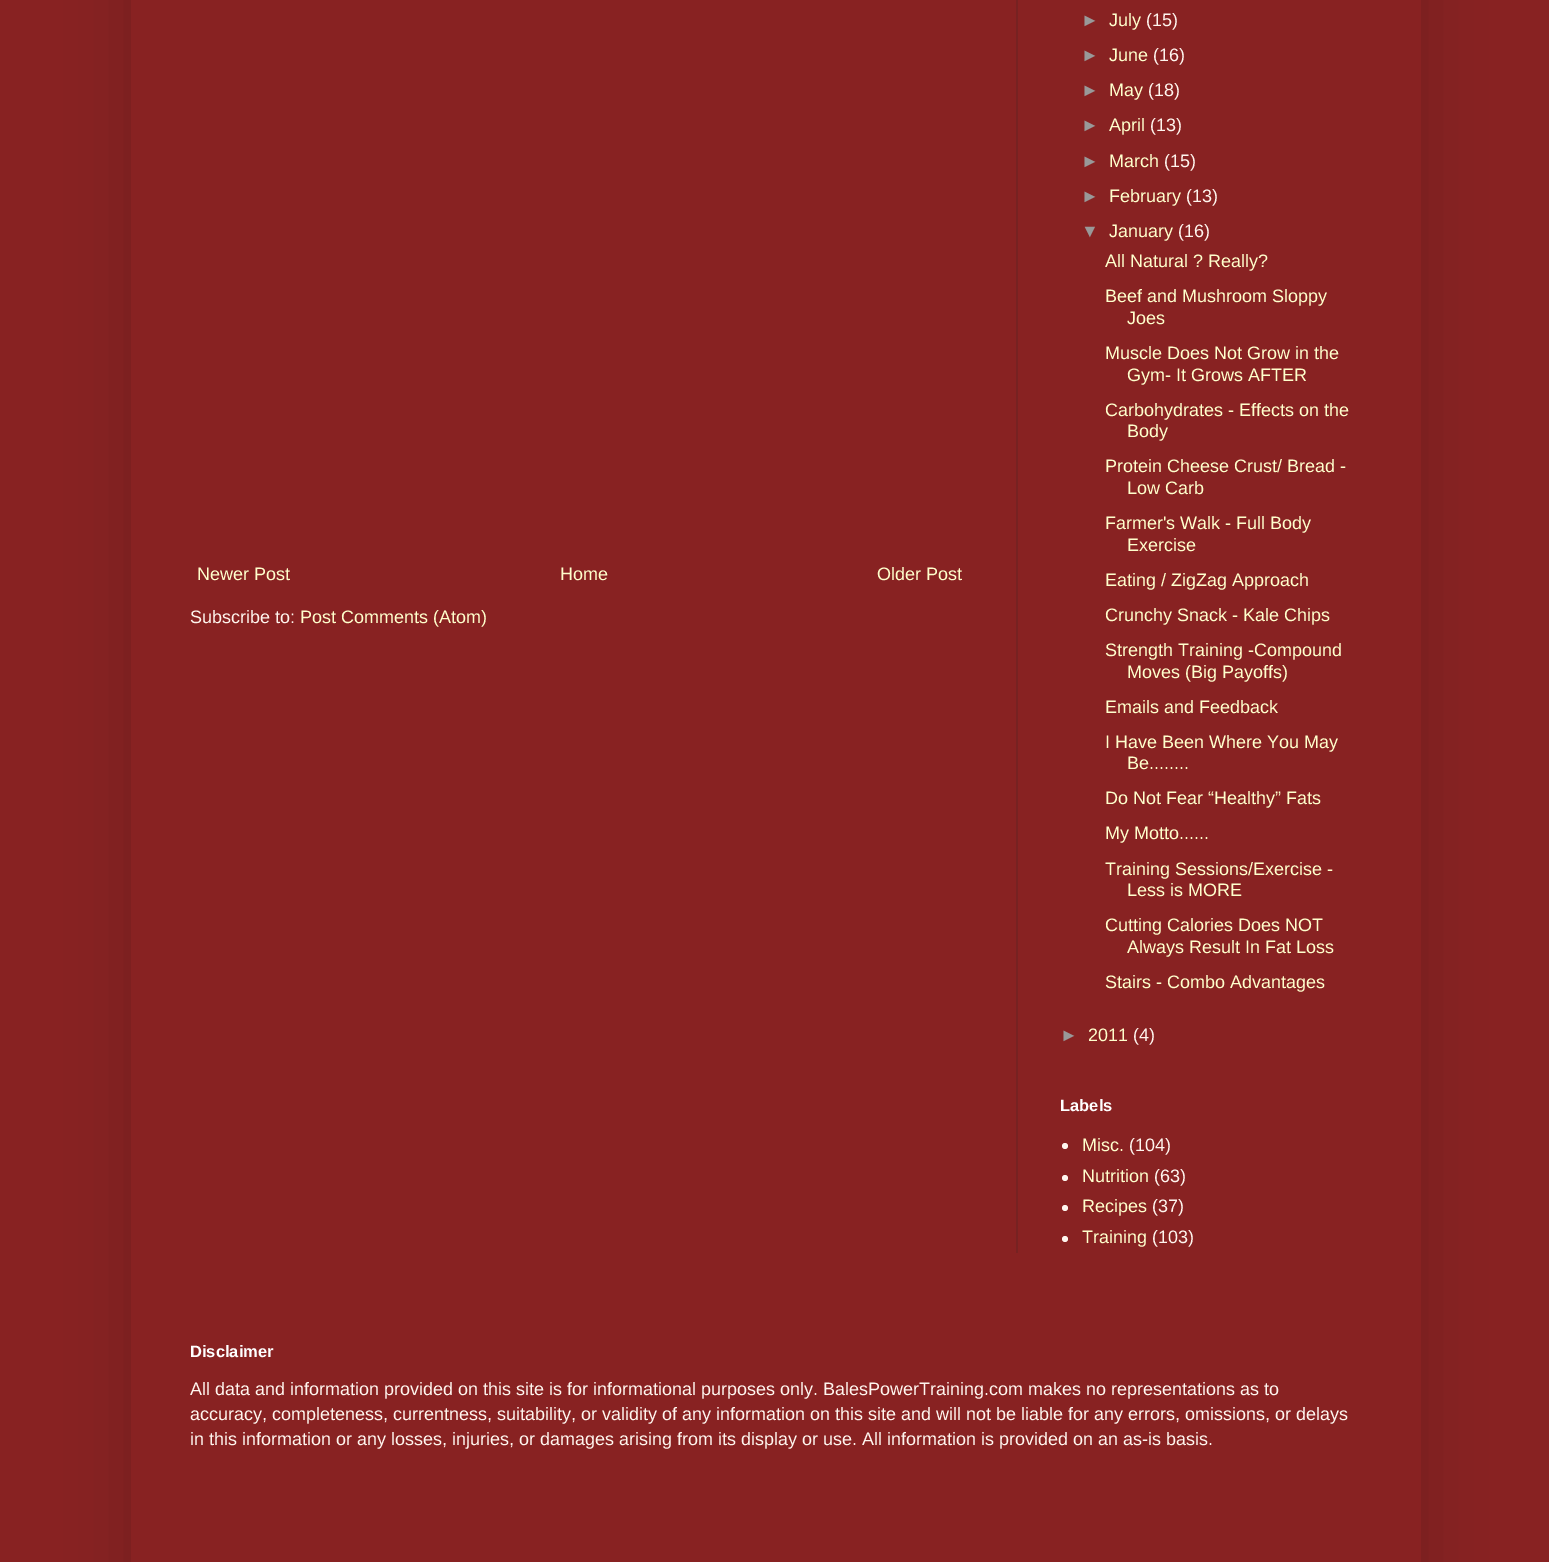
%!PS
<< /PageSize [1549 1562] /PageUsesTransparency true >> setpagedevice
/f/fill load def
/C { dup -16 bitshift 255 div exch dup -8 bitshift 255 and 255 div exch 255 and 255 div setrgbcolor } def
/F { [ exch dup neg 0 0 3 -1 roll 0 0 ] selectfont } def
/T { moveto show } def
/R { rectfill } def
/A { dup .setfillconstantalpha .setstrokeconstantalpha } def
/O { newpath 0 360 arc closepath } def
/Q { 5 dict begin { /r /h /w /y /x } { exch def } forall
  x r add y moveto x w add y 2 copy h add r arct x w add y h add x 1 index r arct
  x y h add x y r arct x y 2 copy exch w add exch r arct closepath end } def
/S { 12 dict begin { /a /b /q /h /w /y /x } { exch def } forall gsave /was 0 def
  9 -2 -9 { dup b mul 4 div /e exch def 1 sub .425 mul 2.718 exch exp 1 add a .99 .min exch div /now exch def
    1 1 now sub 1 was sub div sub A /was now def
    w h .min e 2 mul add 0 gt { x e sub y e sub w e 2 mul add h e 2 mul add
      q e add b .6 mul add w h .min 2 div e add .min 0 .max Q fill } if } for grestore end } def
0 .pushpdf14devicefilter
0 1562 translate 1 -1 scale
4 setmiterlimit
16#882222 C
0 0 1549 1562 R
16#000000 C
131 -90 1290 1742 0 30 .15 S
16#882222 C
131 0 1290 1562 R
16#772222 C
1016 0 2 1253 R
/LiberationSans-Regular 18 F
16#FFFFCC C
(Newer Post) 197 580 T
(Home) 560 580 T
(Older Post) 877 580 T
16#FFF5EE C
(Subscribe to:) 190 623 T
16#FFFFCC C
(Post Comments \(Atom\)) 300 623 T
16#999999 C
(►) 1081 26 T
16#FFFFCC C
(July) 1109 26 T
16#FFF5EE C
(\(15\)) 1146 26 T
16#999999 C
(►) 1081 61 T
16#FFFFCC C
(June) 1109 61 T
16#FFF5EE C
(\(16\)) 1153 61 T
16#999999 C
(►) 1081 96 T
16#FFFFCC C
(May) 1109 96 T
16#FFF5EE C
(\(18\)) 1148 96 T
16#999999 C
(►) 1081 131 T
16#FFFFCC C
(April) 1109 131 T
16#FFF5EE C
(\(13\)) 1150 131 T
16#999999 C
(►) 1081 167 T
16#FFFFCC C
(March) 1109 167 T
16#FFF5EE C
(\(15\)) 1164 167 T
16#999999 C
(►) 1081 202 T
16#FFFFCC C
(February) 1109 202 T
16#FFF5EE C
(\(13\)) 1186 202 T
16#999999 C
(▼) 1081 237 T
16#FFFFCC C
(January) 1109 237 T
16#FFF5EE C
(\(16\)) 1178 237 T
16#FFFFCC C
(All Natural ? Really?) 1105 267 T
(Beef and Mushroom Sloppy) 1105 302 T
(Joes) 1127 324 T
(Muscle Does Not Grow in the) 1105 359 T
(Gym- It Grows AFTER) 1127 381 T
(Carbohydrates - Effects on the) 1105 416 T
(Body) 1127 437 T
(Protein Cheese Crust/ Bread -) 1105 472 T
(Low Carb) 1127 494 T
(Farmer's Walk - Full Body) 1105 529 T
(Exercise) 1127 551 T
(Eating / ZigZag Approach) 1105 586 T
(Crunchy Snack - Kale Chips) 1105 621 T
(Strength Training -Compound) 1105 656 T
(Moves \(Big Payoffs\)) 1127 678 T
(Emails and Feedback) 1105 713 T
(I Have Been Where You May) 1105 748 T
(Be........) 1127 769 T
(Do Not Fear “Healthy” Fats) 1105 804 T
(My Motto......) 1105 839 T
(Training Sessions/Exercise -) 1105 875 T
(Less is MORE) 1127 896 T
(Cutting Calories Does NOT) 1105 931 T
(Always Result In Fat Loss) 1127 953 T
(Stairs - Combo Advantages) 1105 988 T
16#999999 C
(►) 1060 1041 T
16#FFFFCC C
(2011) 1088 1041 T
16#FFF5EE C
(\(4\)) 1133 1041 T
/LiberationSans-Bold 16.5 F
16#FFFFFF C
(Labels) 1060 1111 T
16#FFF5EE C
1065 1146 3 O f
/LiberationSans-Regular 18 F
16#FFFFCC C
(Misc.) 1082 1151 T
16#FFF5EE C
(\(104\)) 1129 1151 T
1065 1178 3 O f
16#FFFFCC C
(Nutrition) 1082 1182 T
16#FFF5EE C
(\(63\)) 1154 1182 T
1065 1208 3 O f
16#FFFFCC C
(Recipes) 1082 1212 T
16#FFF5EE C
(\(37\)) 1152 1212 T
1065 1239 3 O f
16#FFFFCC C
(Training) 1082 1243 T
16#FFF5EE C
(\(103\)) 1152 1243 T
/LiberationSans-Bold 16.5 F
16#FFFFFF C
(Disclaimer) 190 1357 T
/LiberationSans-Regular 18 F
16#FFF5EE C
(All data and information provided on this site is for informational purposes only. BalesPowerTraining.com makes no representations as to) 190 1395 T
(accuracy, completeness, currentness, suitability, or validity of any information on this site and will not be liable for any errors, omissions, or delays) 190 1420 T
(in this information or any losses, injuries, or damages arising from its display or use. All information is provided on an as-is basis.) 190 1445 T
.poppdf14devicefilter showpage
